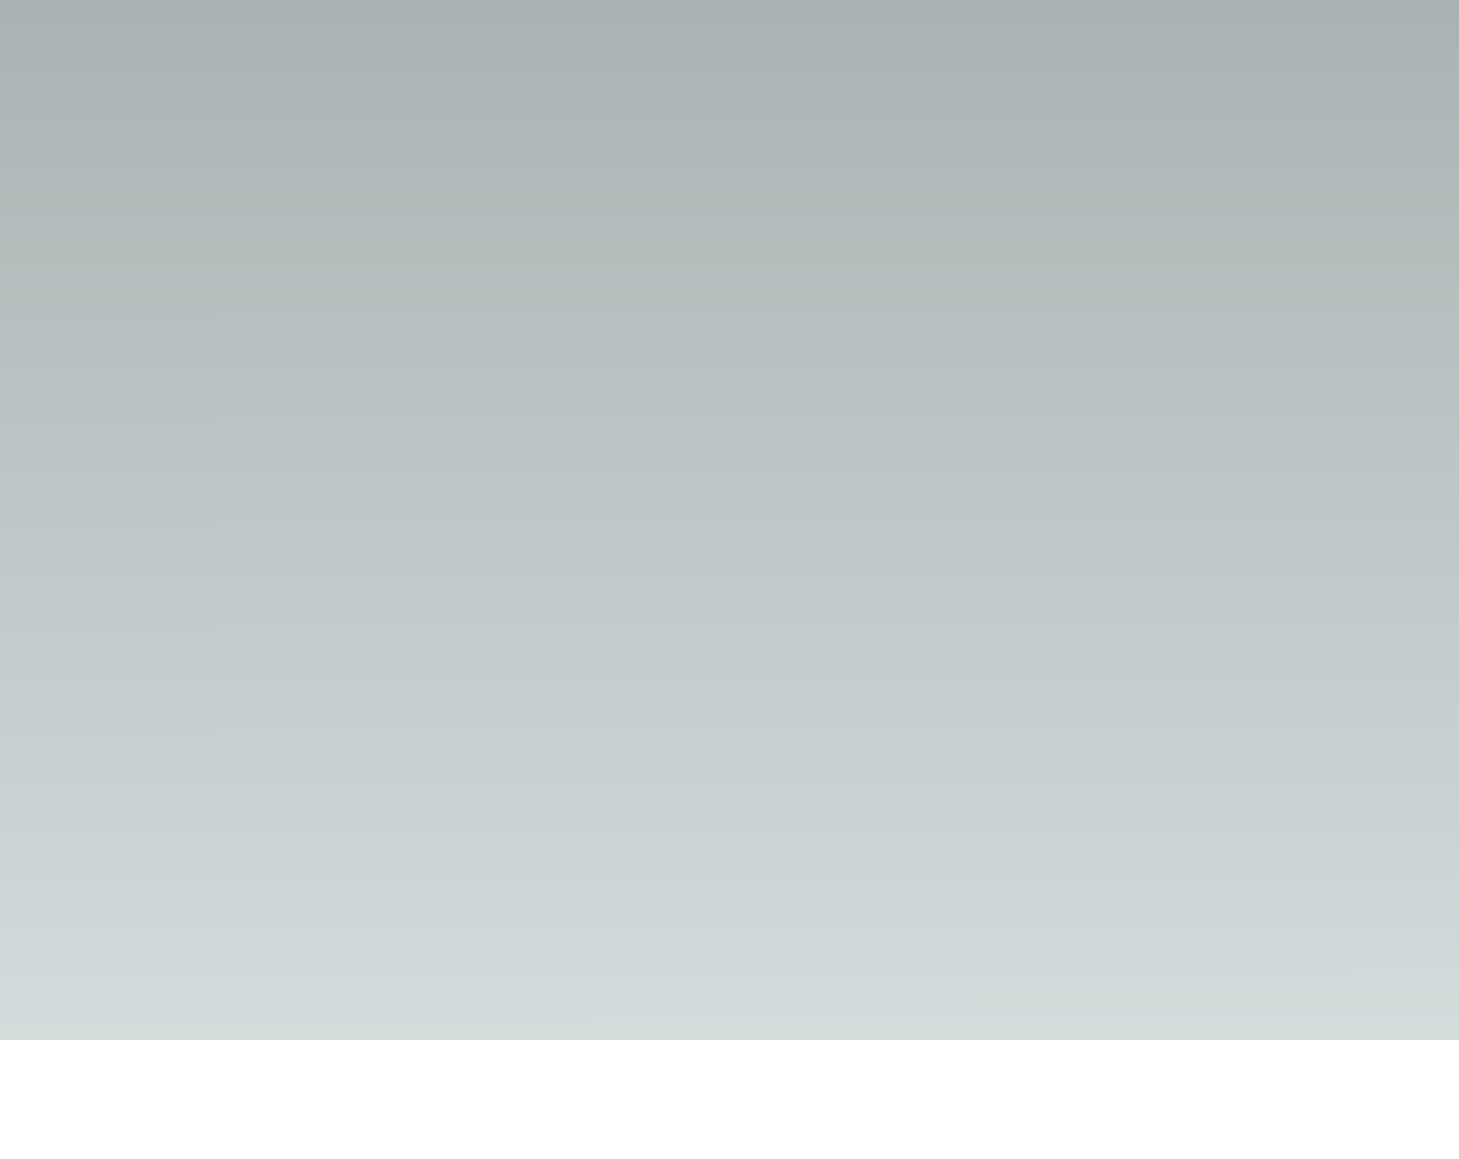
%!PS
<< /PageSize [1459 1159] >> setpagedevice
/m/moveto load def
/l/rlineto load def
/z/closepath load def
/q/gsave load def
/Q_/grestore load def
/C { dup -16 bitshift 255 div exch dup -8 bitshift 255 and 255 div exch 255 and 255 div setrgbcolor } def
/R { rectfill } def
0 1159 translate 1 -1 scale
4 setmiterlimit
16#FFFFFF C
0 0 1459 1159 R
q 0 0 m 1459 0 l 0 1040 l -1459 0 l z clip newpath
<< /ShadingType 2 /ColorSpace /DeviceRGB /Coords [729 0 730 1040] /Extend [true true] /Function << /FunctionType 2 /Domain [0 1] /C0 [.667 .702 .702] /C1 [.831 .863 .863] /N 1 >> >> shfill Q_
showpage
